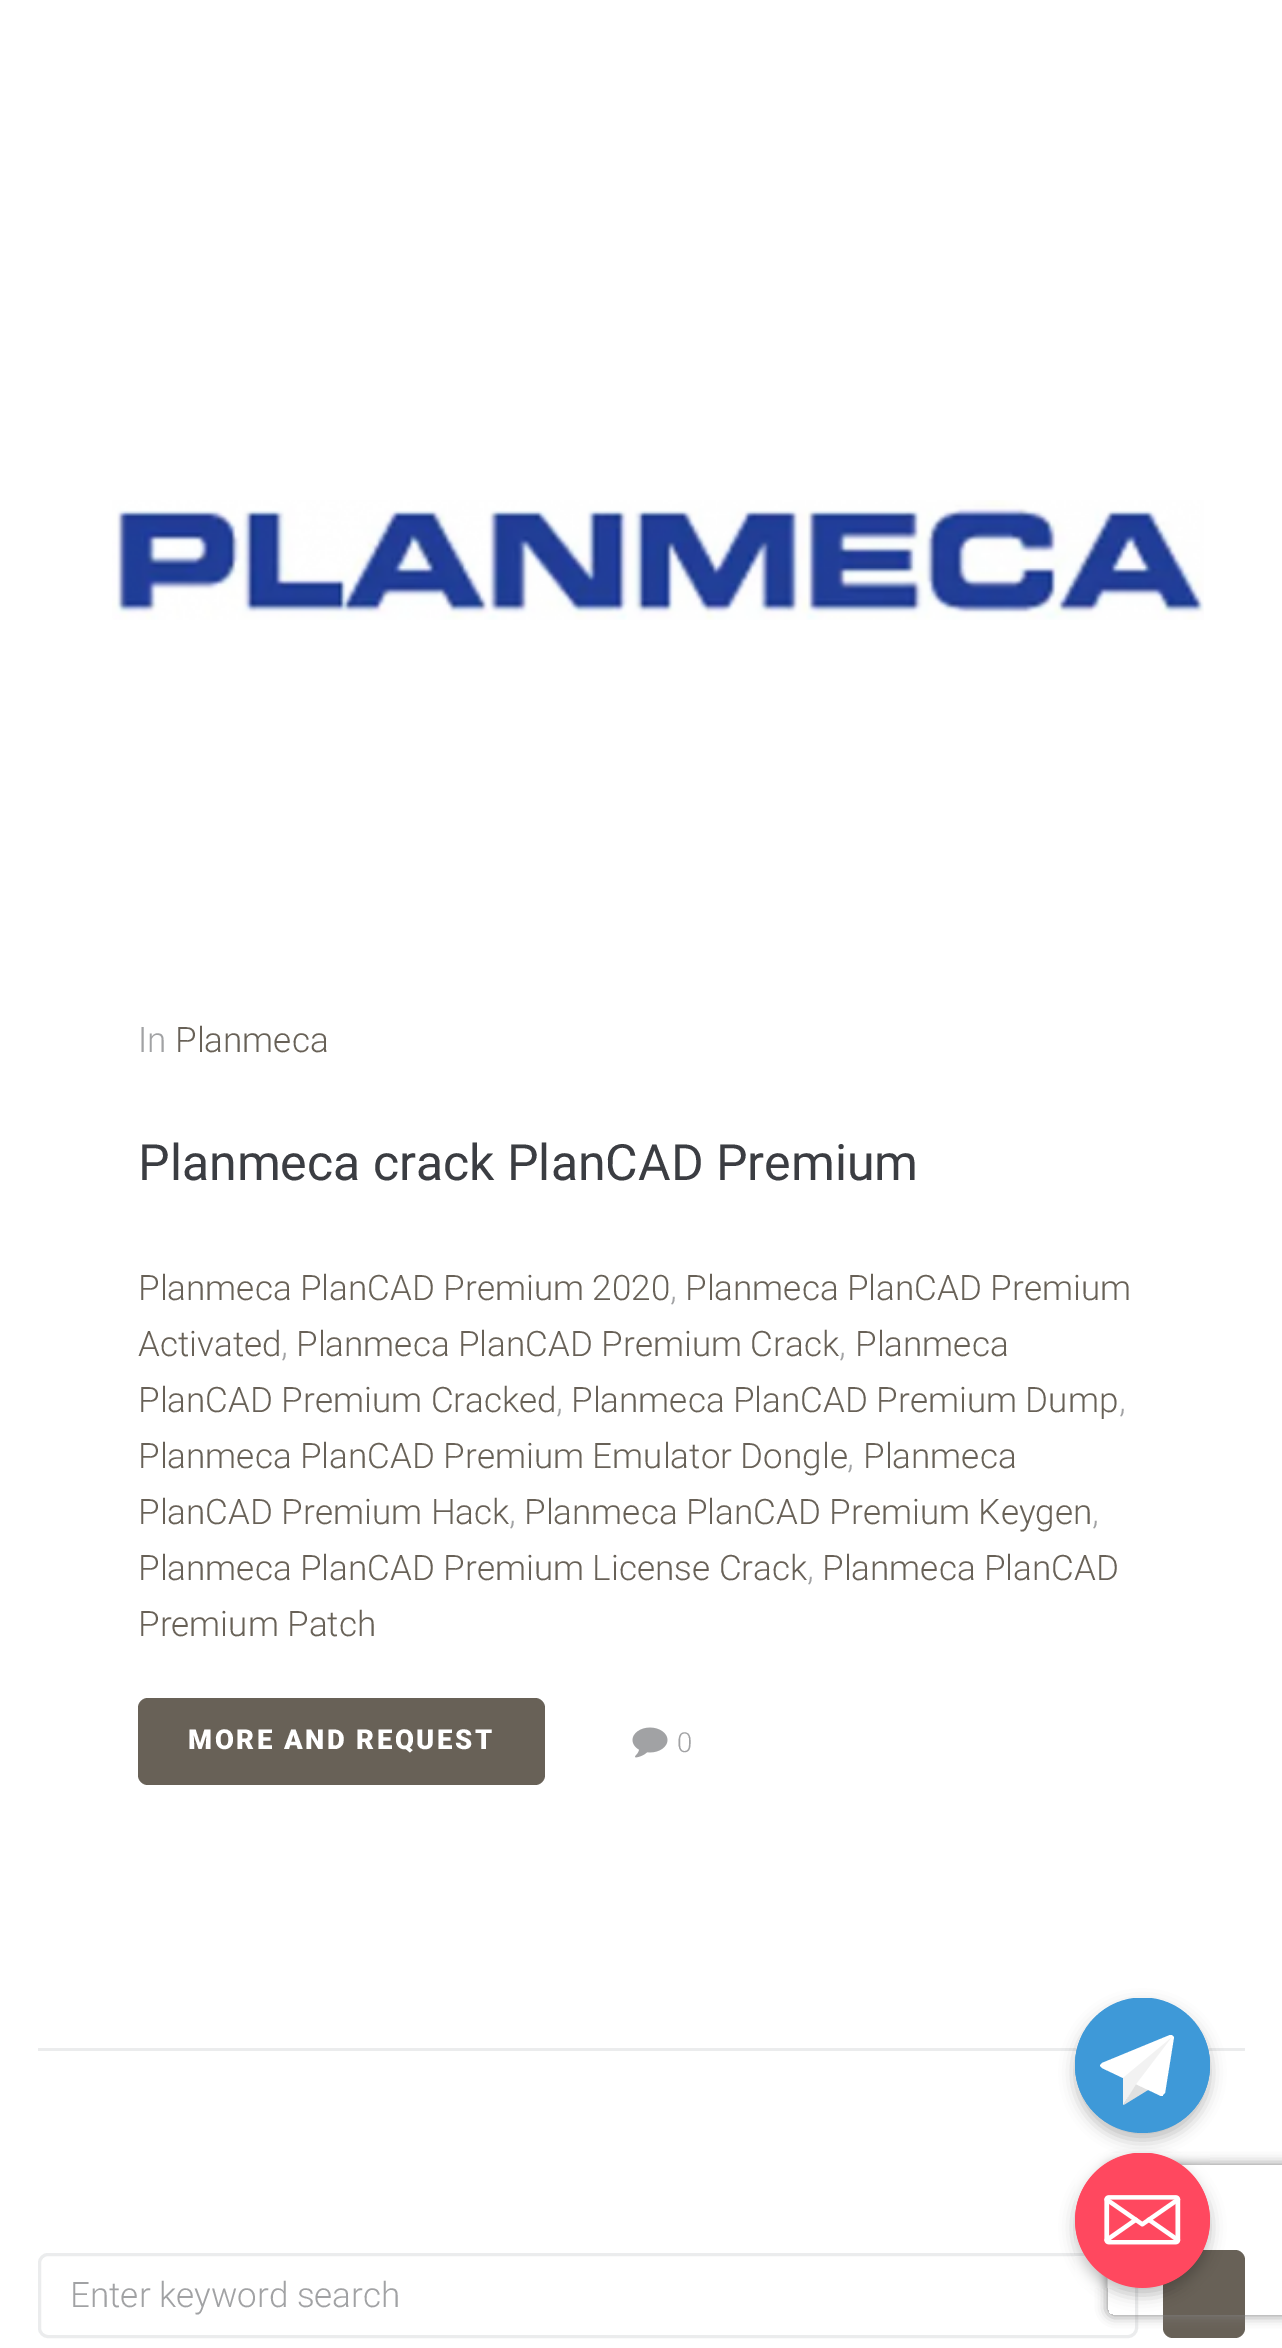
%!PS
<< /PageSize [1282 2348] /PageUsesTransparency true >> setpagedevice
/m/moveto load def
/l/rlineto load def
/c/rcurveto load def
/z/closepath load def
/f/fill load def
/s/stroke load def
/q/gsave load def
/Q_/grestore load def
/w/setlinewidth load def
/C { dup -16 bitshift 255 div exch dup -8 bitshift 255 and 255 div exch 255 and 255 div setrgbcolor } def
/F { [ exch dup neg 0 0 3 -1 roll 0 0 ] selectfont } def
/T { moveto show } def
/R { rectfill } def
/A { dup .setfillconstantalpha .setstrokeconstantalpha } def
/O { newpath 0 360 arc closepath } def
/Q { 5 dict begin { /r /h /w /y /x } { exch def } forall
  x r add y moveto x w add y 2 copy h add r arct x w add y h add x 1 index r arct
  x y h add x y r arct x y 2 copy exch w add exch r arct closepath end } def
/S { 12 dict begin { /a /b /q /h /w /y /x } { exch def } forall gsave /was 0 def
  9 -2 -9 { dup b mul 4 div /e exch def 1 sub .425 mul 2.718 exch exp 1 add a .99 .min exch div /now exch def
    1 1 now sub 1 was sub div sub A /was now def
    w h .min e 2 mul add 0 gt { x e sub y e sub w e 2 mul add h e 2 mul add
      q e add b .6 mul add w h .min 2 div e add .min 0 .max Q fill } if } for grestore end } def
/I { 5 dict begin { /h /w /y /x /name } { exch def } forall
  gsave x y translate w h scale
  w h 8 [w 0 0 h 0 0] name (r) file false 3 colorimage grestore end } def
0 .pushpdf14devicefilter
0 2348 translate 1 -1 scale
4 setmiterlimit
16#FFFFFF C
0 0 1282 2348 R
(1.rgb) 112 500 1092 120 I
/Roboto-Light 35 F
16#A1A2A4 C
(In) 138 1052 T
16#686157 C
(Planmeca) 175 1052 T
/Roboto-Regular 50 F
16#3B3D42 C
(Planmeca crack PlanCAD Premium) 138 1180 T
/Roboto-Light 35 F
16#686157 C
(Planmeca PlanCAD Premium 2020) 138 1300 T
16#A1A2A4 C
(,) 670 1300 T
16#686157 C
(Planmeca PlanCAD Premium) 685 1300 T
(Activated) 138 1356 T
16#A1A2A4 C
(,) 281 1356 T
16#686157 C
(Planmeca PlanCAD Premium Crack) 296 1356 T
16#A1A2A4 C
(,) 839 1356 T
16#686157 C
(Planmeca) 855 1356 T
(PlanCAD Premium Cracked) 138 1412 T
16#A1A2A4 C
(,) 556 1412 T
16#686157 C
(Planmeca PlanCAD Premium Dump) 571 1412 T
16#A1A2A4 C
(,) 1119 1412 T
16#686157 C
(Planmeca PlanCAD Premium Emulator Dongle) 138 1468 T
16#A1A2A4 C
(,) 847 1468 T
16#686157 C
(Planmeca) 863 1468 T
(PlanCAD Premium Hack) 138 1524 T
16#A1A2A4 C
(,) 509 1524 T
16#686157 C
(Planmeca PlanCAD Premium Keygen) 524 1524 T
16#A1A2A4 C
(,) 1092 1524 T
16#686157 C
(Planmeca PlanCAD Premium License Crack) 138 1580 T
16#A1A2A4 C
(,) 807 1580 T
16#686157 C
(Planmeca PlanCAD) 822 1580 T
(Premium Patch) 138 1636 T
138 1698 407 87 10 Q f
/Roboto-Black 27.5 F
16#FFFFFF C
188 1749 m 2.5 0 (MORE AND REQUEST) ashow
(2.rgb) 632 1727 36 31 I
/Roboto-Light 27.5 F
16#A1A2A4 C
(0) 677 1752 T
16#EBECED C
38 2048 1207 3 R
3 w
39.5 2254.5 1097 82 8.5 Q s
/Roboto-Light 35 F
16#A1A2A4 C
(Enter keyword search) 70 2307 T
16#686157 C
1163 2250 82 88 10 Q f
16#000000 C
1075 2005 135 135 67.5 7.5 .25 S
16#3E99D8 C
1142.5 2065.5 67.5 O f
q
1075 1998 135 135 rectclip
1142.5 2065 67.5 O f
Q_
16#E0E0E0 C
1135.5 2082.5 m -12 22.5 l 26 -16 l z f
16#FFFFFF C
1173 2036 m -1 -1 -2 -1 -3 -1 c -68 28 l -1 1 -2 2 -2 3 c 0 0 1 1 2 2 c 59 28 l 1 0 l 1 0 1 0 1 -1 c 2 -2 l 9 -56 l z f
16#F2F2F2 C
1171 2038 m -48 40 l 0 27 l 13 -21 l z f
16#000000 C
1075 2160 135 135 67.5 7.5 .25 S
q
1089 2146 m 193 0 l 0 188 l -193 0 l z 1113 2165 m 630 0 l 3 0 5 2 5 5 c 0 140 l 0 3 -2 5 -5 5 c -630 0 l -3 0 -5 -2 -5 -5 c 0 -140 l 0 -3 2 -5 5 -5 c z eoclip newpath
16#808080 C
1108 2165 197 150 5 6 1 S
Q_
16#FF485F C
1142.5 2220.5 67.5 O f
(3.rgb) 1075 2153 135 135 I
.poppdf14devicefilter showpage
